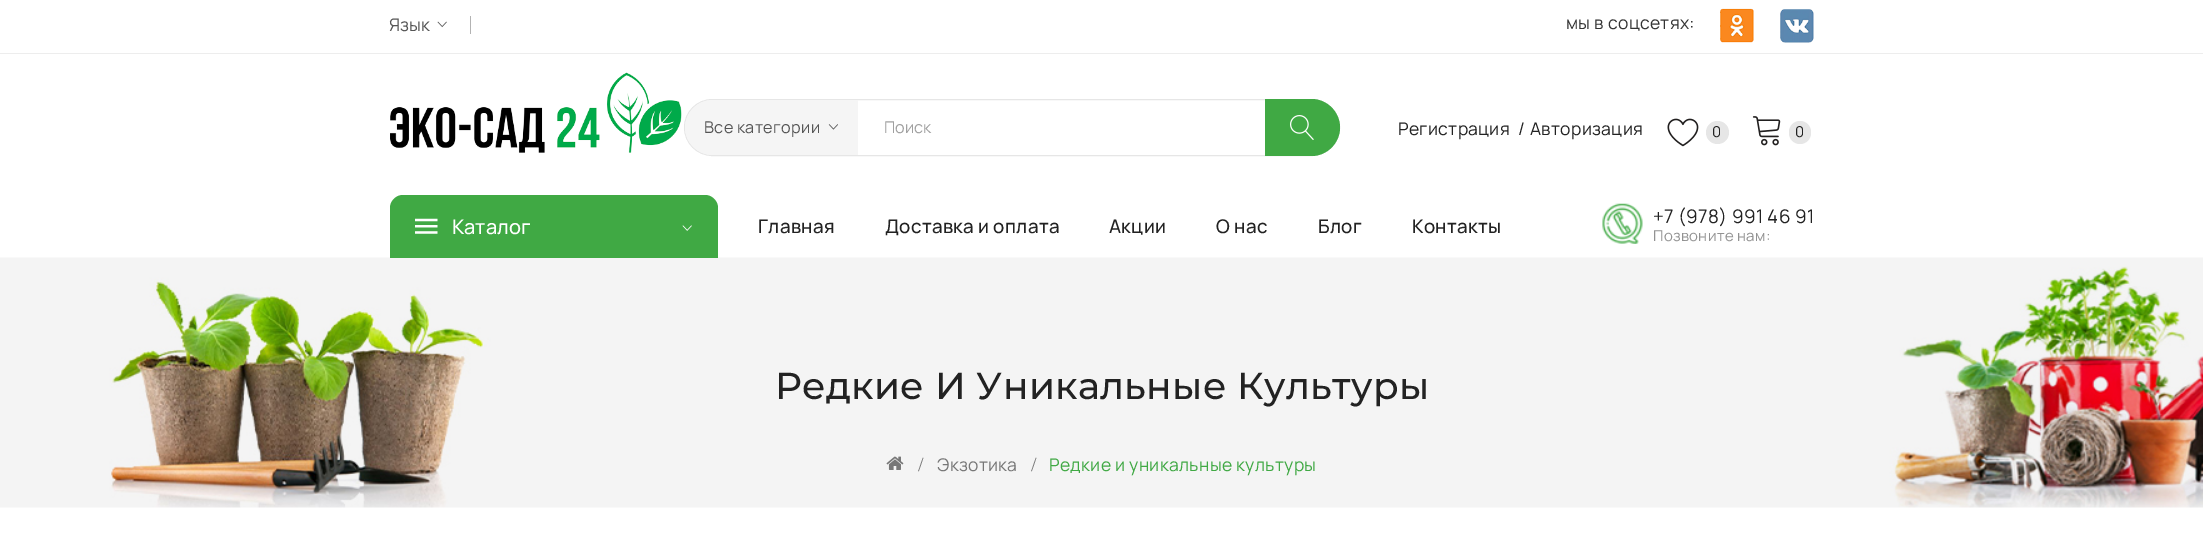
%!PS
<< /PageSize [2203 535] >> setpagedevice
/m/moveto load def
/l/rlineto load def
/c/rcurveto load def
/z/closepath load def
/f/fill load def
/s/stroke load def
/C { dup -16 bitshift 255 div exch dup -8 bitshift 255 and 255 div exch 255 and 255 div setrgbcolor } def
/F { [ exch dup neg 0 0 3 -1 roll 0 0 ] selectfont } def
/T { moveto show } def
/R { rectfill } def
/O { newpath 0 360 arc closepath } def
/Q { 5 dict begin { /r /h /w /y /x } { exch def } forall
  x r add y moveto x w add y 2 copy h add r arct x w add y h add x 1 index r arct
  x y h add x y r arct x y 2 copy exch w add exch r arct closepath end } def
/I { 5 dict begin { /h /w /y /x /name } { exch def } forall
  gsave x y translate w h scale
  w h 8 [w 0 0 h 0 0] name (r) file false 3 colorimage grestore end } def
0 535 translate 1 -1 scale
4 setmiterlimit
16#FFFFFF C
0 0 2203 535 R
16#EDEDED C
0 53 2203 1 R
/Manrope-Regular 17.5 F
16#555555 C
(Язык) 389 31 T
(1.rgb) 437 21 10 7 I
16#B3B3B3 C
470 16 1 18 R
16#333333 C
1566 29 m .35 0 (мы в соцсетях:) ashow
(2.rgb) 1720 8 34 35 I
(3.rgb) 1780 9 34 34 I
16#E6E6E6 C
684.5 99.5 655 56 28 Q s
16#F5F5F5 C
712.5 100 m 145.5 0 l 0 55 l -145.5 0 l -15 0 -27.5 -12.5 -27.5 -27.5 c 0 -15 12.5 -27.5 27.5 -27.5 c z f
/Manrope-Regular 16.25 F
16#555555 C
704 133 m .35 0 (Все категории) ashow
(4.rgb) 828 124 10 6 I
16#A0A0A0 C
(Поиск) 884 133 T
16#40A944 C
1265 99 m 46.5 0 l 15.5 0 28.5 13 28.5 28.5 c 0 15.5 -13 28.5 -28.5 28.5 c -46.5 0 l z f
(5.rgb) 1290 115 24 25 I
(6.rgb) 390 72 292 81 I
/Manrope-Regular 17.5 F
16#222222 C
1398 135 m .35 0 (Регистрация) ashow
1518 135 m .35 0 (/) ashow
1530 135 m .35 0 (Авторизация) ashow
(7.rgb) 1667 118 32 29 I
16#E6E6E6 C
1717.5 132.5 11.5 O f
/Manrope-Regular 15 F
16#222222 C
1712 137 m .35 0 (0) ashow
(8.rgb) 1752 116 29 30 I
16#E6E6E6 C
1789 121 22 23 11 Q f
16#222222 C
(0) 1795 137 T
(12.rgb) 0 257 2203 251 I
16#40A944 C
403 195 m 302 0 l 7 0 13 6 13 13 c 0 50 l -328 0 l 0 -50 l 0 -7 6 -13 13 -13 c z f
(9.rgb) 415 218 23 16 I
/Manrope-Medium 20 F
16#FFFFFF C
(Каталог) 452 234 T
(10.rgb) 682 225 10 6 I
/Manrope-Medium 18.75 F
16#222222 C
758 233 m .35 0 (Главная) ashow
885 233 m .35 0 (Доставка и оплата) ashow
1109 233 m .35 0 (Акции) ashow
1216 233 m .35 0 (О нас) ashow
1318 233 m .35 0 (Блог) ashow
1412 233 m .35 0 (Контакты) ashow
(11.rgb) 1602 203 41 41 I
/Manrope-Regular 18.75 F
1653 223 m .35 0 (+7 \(978\) 991 46 91) ashow
/Manrope-Regular 15 F
16#929292 C
1653 241 m .35 0 (Позвоните нам:) ashow
/Montserrat-Medium 37.5 F
16#222222 C
775 399 m .35 0 (Редкие И Уникальные Культуры) ashow
(13.rgb) 886 456 18 14 I
/LiberationSerif-Regular 20 F
16#777777 C
918 471 m .35 0 (/) ashow
/Manrope-Regular 17.5 F
937 471 m .35 0 (Экзотика) ashow
/LiberationSerif-Regular 20 F
1031 471 m .35 0 (/) ashow
/Manrope-Regular 17.5 F
16#40A944 C
1049 471 m .35 0 (Редкие и уникальные культуры) ashow
showpage
